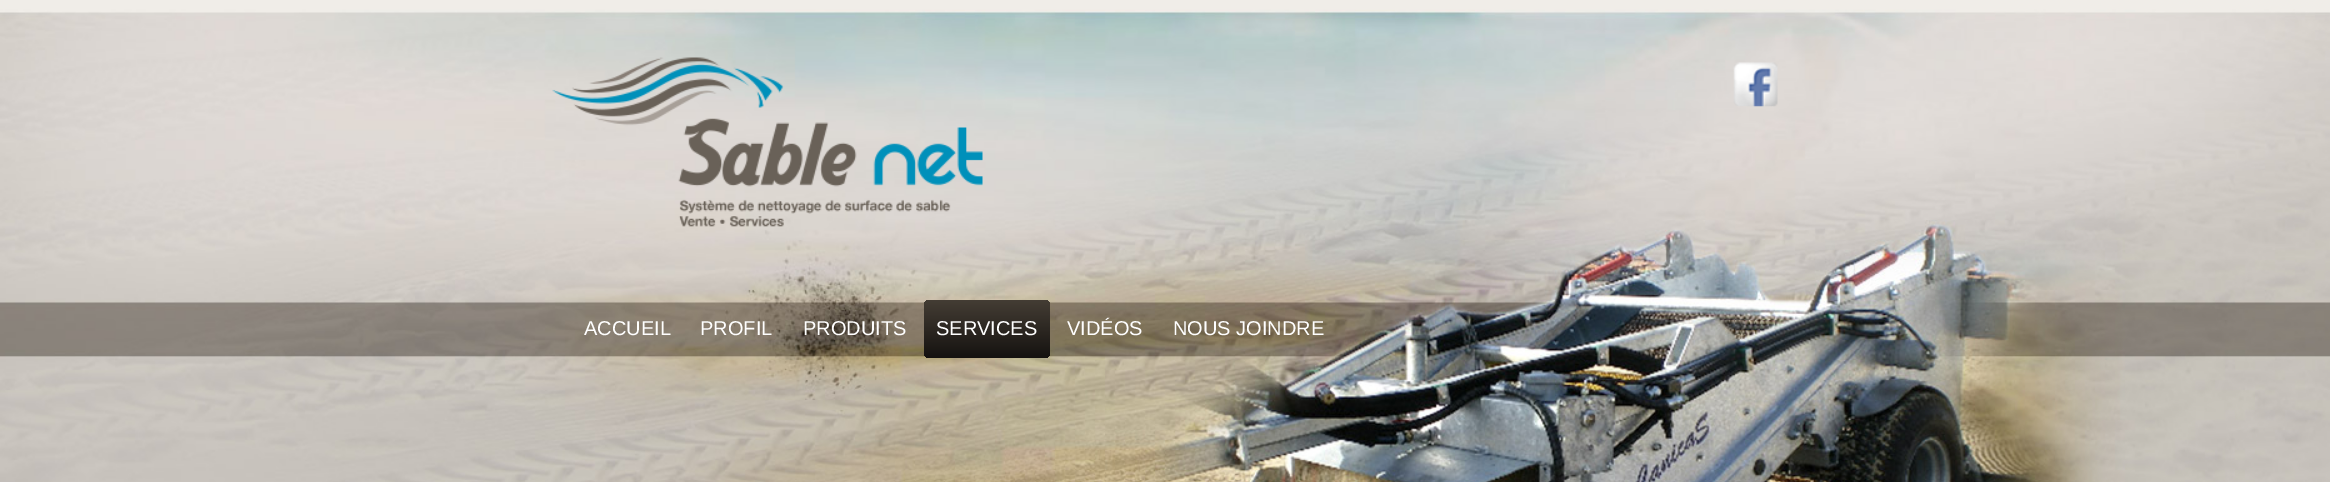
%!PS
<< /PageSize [2330 482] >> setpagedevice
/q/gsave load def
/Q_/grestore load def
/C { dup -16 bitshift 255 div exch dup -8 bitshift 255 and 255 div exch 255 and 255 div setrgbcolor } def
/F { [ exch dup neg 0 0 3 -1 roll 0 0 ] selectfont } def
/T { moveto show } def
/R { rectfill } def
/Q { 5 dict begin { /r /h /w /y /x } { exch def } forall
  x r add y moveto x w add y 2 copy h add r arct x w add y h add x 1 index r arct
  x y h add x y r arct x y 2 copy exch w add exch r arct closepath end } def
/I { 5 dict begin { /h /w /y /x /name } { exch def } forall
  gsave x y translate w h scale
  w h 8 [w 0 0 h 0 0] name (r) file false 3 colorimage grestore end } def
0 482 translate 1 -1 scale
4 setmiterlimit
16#FFFFFF C
0 0 2330 482 R
(1.rgb) 0 0 2330 482 I
(2.rgb) 552 57 431 170 I
(3.rgb) 1733 62 45 45 I
/LiberationSans-Regular 20 F
(ACCUEIL) 584 335 T
(PROFIL) 700 335 T
(PRODUITS) 803 335 T
q 924 300 126 58 6 Q clip newpath
<< /ShadingType 2 /ColorSpace /DeviceRGB /Coords [987 300 987 358] /Extend [true true] /Function << /FunctionType 2 /Domain [0 1] /C0 [.267 .239 .204] /C1 [.082 .071 .063] /N 1 >> >> shfill Q_
(SERVICES) 936 335 T
(VIDÉOS) 1067 335 T
(NOUS JOINDRE) 1173 335 T
showpage
